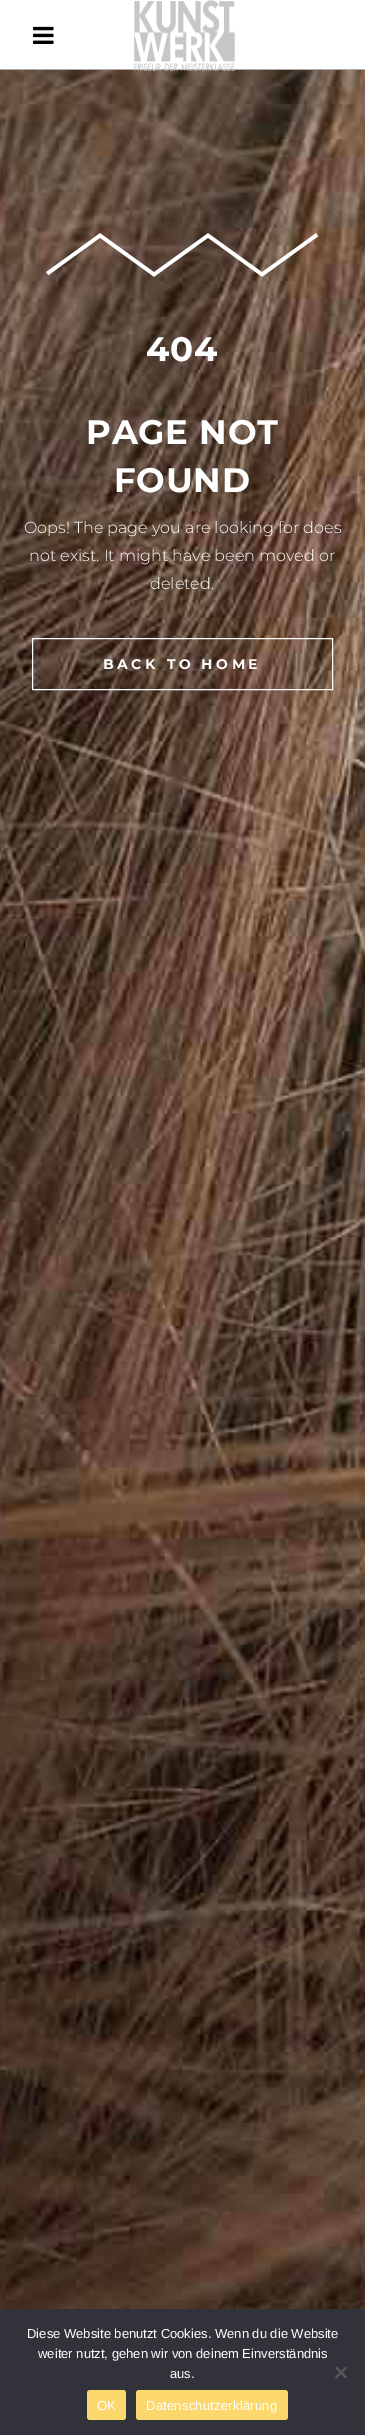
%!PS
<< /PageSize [365 2435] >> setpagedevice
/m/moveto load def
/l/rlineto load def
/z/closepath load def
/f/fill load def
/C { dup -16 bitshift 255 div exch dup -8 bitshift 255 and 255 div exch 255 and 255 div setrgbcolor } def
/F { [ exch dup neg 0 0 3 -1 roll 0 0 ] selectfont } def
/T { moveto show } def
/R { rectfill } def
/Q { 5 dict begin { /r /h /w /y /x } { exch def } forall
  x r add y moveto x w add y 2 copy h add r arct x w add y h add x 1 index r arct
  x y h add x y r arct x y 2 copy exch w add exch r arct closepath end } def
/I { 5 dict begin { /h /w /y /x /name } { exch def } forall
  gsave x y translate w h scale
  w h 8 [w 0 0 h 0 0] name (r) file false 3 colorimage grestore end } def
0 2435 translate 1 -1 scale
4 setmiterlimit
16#FFFFFF C
0 0 365 2435 R
16#AFAAA9 C
0 69 365 1 R
(1.rgb) 33 26 21 18 I
(3.rgb) 0 70 365 2239 I
(2.rgb) 134 0 101 71 I
(4.rgb) 46 233 273 44 I
/Montserrat-Bold 34 F
16#FFFFFF C
146 361 m .75 0 (404) ashow
86 444 m .75 0 (PAGE NOT) ashow
114 492 m .75 0 (FOUND) ashow
/Montserrat-Light 16 F
(Oops! The page you are looking for does) 24 533 T
(not exist. It might have been moved or) 29 561 T
(deleted.) 150 589 T
32.5 638.5 300 51 rectstroke
/Montserrat-Bold 14 F
103 669 m 3.5 0 (BACK TO HOME) ashow
16#32323A C
0 2309 365 126 R
/LiberationSans-Regular 13 F
16#FFFFFF C
(Diese Website benutzt Cookies. Wenn du die Website) 27 2338 T
(weiter nutzt, gehen wir von deinem Einverständnis) 38 2358 T
(aus.) 170 2378 T
16#59595D C
345.5 2366.5 m 1.5 1.5 l -10.5 10.5 l -1.5 -1.5 l z f
335 2368 m 1.5 -1.5 l 10.5 10.5 l -1.5 1.5 l z f
16#FCD86C C
87 2390 39 30 3 Q f
16#FFFFFF C
97 2410 m .25 0 (OK) ashow
16#FCD86C C
136 2390 152 30 3 Q f
16#FFFFFF C
146 2410 m .25 0 (Datenschutzerklärung) ashow
showpage
